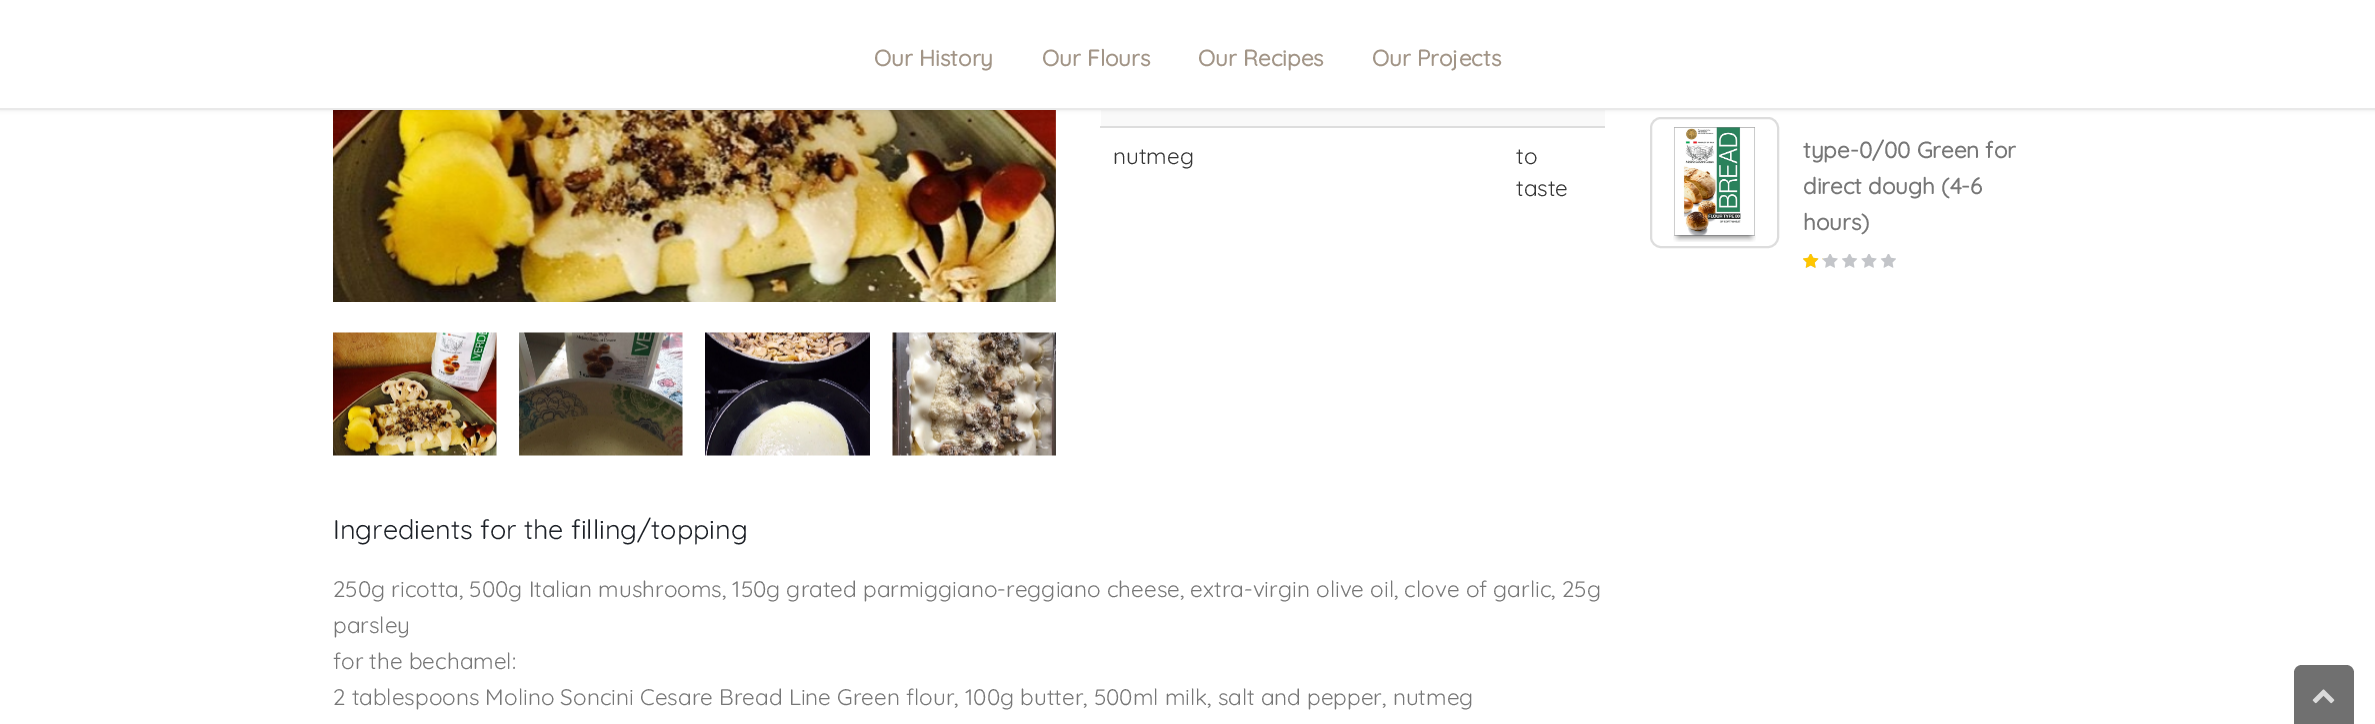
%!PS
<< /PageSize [2375 724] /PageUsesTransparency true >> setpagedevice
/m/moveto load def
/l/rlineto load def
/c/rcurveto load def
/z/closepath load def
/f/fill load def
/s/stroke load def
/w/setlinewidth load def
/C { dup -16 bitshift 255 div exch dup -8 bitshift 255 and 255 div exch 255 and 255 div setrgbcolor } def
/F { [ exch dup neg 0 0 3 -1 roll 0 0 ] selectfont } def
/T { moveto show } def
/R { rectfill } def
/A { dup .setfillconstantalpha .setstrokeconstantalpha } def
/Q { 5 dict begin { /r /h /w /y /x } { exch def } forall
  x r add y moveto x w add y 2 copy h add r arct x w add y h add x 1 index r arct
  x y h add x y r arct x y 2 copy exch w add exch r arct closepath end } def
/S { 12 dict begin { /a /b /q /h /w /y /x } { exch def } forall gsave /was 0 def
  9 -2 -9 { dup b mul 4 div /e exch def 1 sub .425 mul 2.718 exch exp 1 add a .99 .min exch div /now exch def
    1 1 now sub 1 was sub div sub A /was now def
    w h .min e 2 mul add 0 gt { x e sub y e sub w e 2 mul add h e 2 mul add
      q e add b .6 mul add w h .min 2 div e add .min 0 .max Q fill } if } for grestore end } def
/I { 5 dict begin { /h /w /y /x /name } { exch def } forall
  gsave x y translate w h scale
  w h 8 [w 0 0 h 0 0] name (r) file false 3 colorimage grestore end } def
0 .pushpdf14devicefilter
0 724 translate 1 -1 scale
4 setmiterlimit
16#FFFFFF C
0 0 2375 724 R
(1.rgb) 333 110 723 192 I
16#F9F9F9 C
1101 110 504 16 R
16#000000 C
0 -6 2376 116 0 2 .1 S
16#FFFFFF C
0 0 2375 108 R
16#E9E9E9 C
0 108 2375 2 R
/Quicksand-Bold 22.5 F
16#A29587 C
(Our History) 874 66 T
(Our Flours) 1042 66 T
(Our Recipes) 1198 66 T
(Our Projects) 1372 66 T
(2.rgb) 333 332 164 124 I
(3.rgb) 519 332 164 124 I
(4.rgb) 705 332 165 124 I
(5.rgb) 892 332 164 124 I
/Quicksand-Light 22.5 F
16#353535 C
(nutmeg) 1113 164 T
16#DDDDDD C
1100 126 505 2 R
16#353535 C
(to) 1516 164 T
(taste) 1516 196 T
/Quicksand-Light 27 F
16#1D2127 C
(Ingredients for the filling/topping) 333 539 T
/Quicksand-Light 22.5 F
16#777777 C
(250g ricotta, 500g Italian mushrooms, 150g grated parmiggiano-reggiano cheese, extra-virgin olive oil, clove of garlic, 25g) 333 597 T
(parsley) 333 633 T
(for the bechamel:) 333 669 T
(2 tablespoons Molino Soncini Cesare Bread Line Green flour, 100g butter, 500ml milk, salt and pepper, nutmeg) 333 705 T
16#DDDDDD C
2 w
1651 118 127 129 10 Q s
(6.rgb) 1673 127 83 115 I
/Quicksand-Bold 22.5 F
16#777777 C
(type-0/00 Green for) 1803 158 T
(direct dough \(4-6) 1803 194 T
(hours\)) 1803 230 T
(7.rgb) 1803 254 93 14 I
(8.rgb) 1803 254 20 14 I
16#707070 C
2302 665 m 44 0 l 4.5 0 8 3.5 8 8 c 0 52 l -60 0 l 0 -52 l 0 -4.5 3.5 -8 8 -8 c z f
(9.rgb) 2312 689 23 15 I
.poppdf14devicefilter showpage
